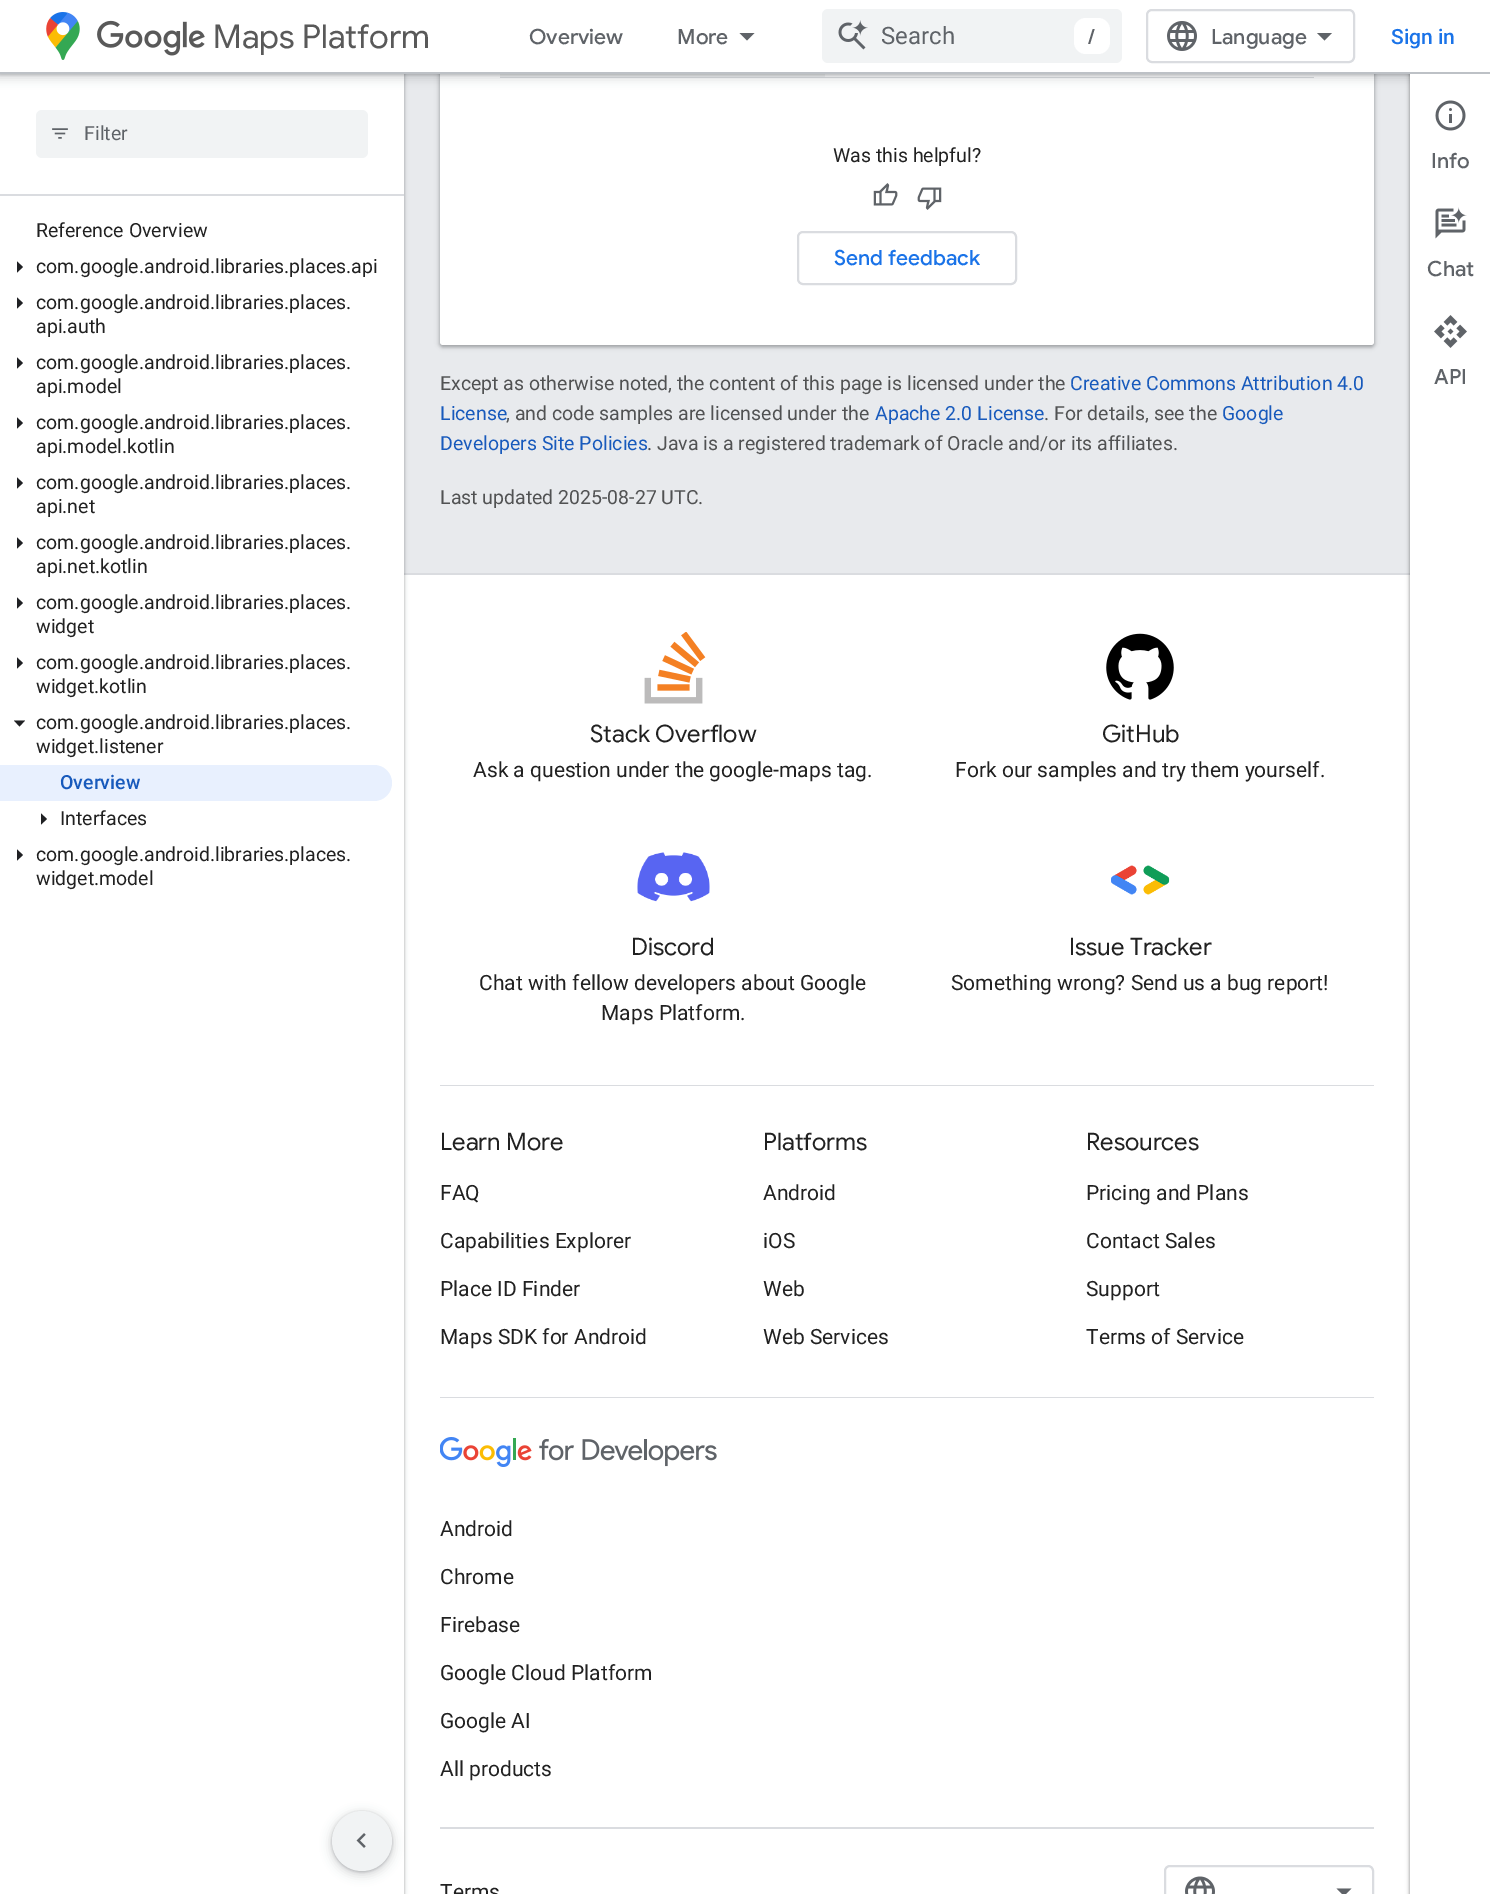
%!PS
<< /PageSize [1490 1894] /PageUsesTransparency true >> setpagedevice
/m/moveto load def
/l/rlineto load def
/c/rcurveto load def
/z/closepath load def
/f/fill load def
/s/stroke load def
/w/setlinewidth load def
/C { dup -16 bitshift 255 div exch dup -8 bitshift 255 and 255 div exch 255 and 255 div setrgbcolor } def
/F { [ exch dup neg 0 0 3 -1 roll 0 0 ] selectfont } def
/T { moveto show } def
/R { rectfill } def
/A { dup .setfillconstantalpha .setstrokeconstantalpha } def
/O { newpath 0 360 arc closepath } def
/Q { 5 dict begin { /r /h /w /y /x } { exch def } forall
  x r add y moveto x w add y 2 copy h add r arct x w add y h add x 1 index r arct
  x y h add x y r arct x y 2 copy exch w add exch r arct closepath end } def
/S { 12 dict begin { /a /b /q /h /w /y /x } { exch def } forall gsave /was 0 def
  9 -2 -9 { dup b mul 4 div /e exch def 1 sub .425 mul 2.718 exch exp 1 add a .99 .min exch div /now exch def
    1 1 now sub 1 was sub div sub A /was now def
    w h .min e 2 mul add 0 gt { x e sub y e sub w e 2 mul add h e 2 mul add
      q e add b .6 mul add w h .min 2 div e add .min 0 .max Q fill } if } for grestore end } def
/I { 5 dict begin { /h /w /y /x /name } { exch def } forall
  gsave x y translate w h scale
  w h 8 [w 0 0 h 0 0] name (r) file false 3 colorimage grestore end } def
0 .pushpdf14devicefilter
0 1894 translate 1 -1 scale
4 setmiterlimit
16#E8EAED C
0 0 1490 1894 R
16#FFFFFF C
404 575 1006 1319 R
16#DADCE0 C
404 573 1006 2 R
16#3C4043 C
-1 0 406 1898 0 2 .15 S
0 2 404 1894 0 1.5 .3 S
16#FFFFFF C
0 74 404 1820 R
16#3C4043 C
438 -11 938 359 5 2 .15 S
440 -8 934 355 3 1.5 .3 S
16#FFFFFF C
440 -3 934 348 3 Q f
16#DADCE0 C
500 77 814 1 R
16#F1F3F4 C
500 74 325 3 R
16#3C4043 C
-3 -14 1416 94 0 4.5 .15 S
0 -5 1410 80 0 1.5 .3 S
16#000000 C
1409 72 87 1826 0 2 .15 S
1410 74 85 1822 0 1.5 .3 S
16#FFFFFF C
0 0 1490 72 R
16#BDC1C6 C
0 72 1490 2 R
(1.rgb) 46 12 34 48 I
(2.rgb) 97 20 108 36 I
/GoogleSans-Regular 33 F
16#595959 C
(Maps Platform) 213 48 T
/GoogleSans-Medium 21 F
16#5F6368 C
(Overview) 529 44 T
(More) 677 44 T
739.5 33 m 15 0 l -7.5 7.5 l z f
16#F1F3F4 C
822 9 300 54 6 Q f
(3.rgb) 838 20 30 30 I
/Roboto-Regular 24 F
16#5F6368 C
(Search) 881 44 T
16#FFFFFF C
1074 18 36 36 12 Q f
/GoogleSans-Medium 21 F
16#5F6368 C
(/) 1088 44 T
16#DADCE0 C
2 w
1147 10 207 52 5 Q s
(4.rgb) 1167 21 30 30 I
16#5F6368 C
(Language) 1211 44 T
1324.5 40.5 m -7.5 -7.5 l 15 0 l z f
/Roboto-Medium 21 F
16#1A73E8 C
(Sign in) 1391 44 T
16#DADCE0 C
0 194 404 2 R
16#F1F3F4 C
36 110 332 48 6 Q f
(5.rgb) 52 128 16 11 I
/Roboto-Regular 19.5 F
16#5F6368 C
(Filter) 84 140 T
16#212121 C
(Reference Overview) 36 237 T
16#202124 C
17 272.5 m 0 -11 l 6 5.5 l z f
16#212121 C
(com.google.android.libraries.places.api) 36 273 T
16#202124 C
17 308.5 m 0 -11 l 6 5.5 l z f
16#212121 C
(com.google.android.libraries.places.) 36 309 T
(api.auth) 36 333 T
16#202124 C
17 368.5 m 0 -11 l 6 5.5 l z f
16#212121 C
(com.google.android.libraries.places.) 36 369 T
(api.model) 36 393 T
16#202124 C
17 428.5 m 0 -11 l 6 5.5 l z f
16#212121 C
(com.google.android.libraries.places.) 36 429 T
(api.model.kotlin) 36 453 T
16#202124 C
17 488.5 m 0 -11 l 6 5.5 l z f
16#212121 C
(com.google.android.libraries.places.) 36 489 T
(api.net) 36 513 T
16#202124 C
17 548.5 m 0 -11 l 6 5.5 l z f
16#212121 C
(com.google.android.libraries.places.) 36 549 T
(api.net.kotlin) 36 573 T
16#202124 C
17 608.5 m 0 -11 l 6 5.5 l z f
16#212121 C
(com.google.android.libraries.places.) 36 609 T
(widget) 36 633 T
16#202124 C
17 668.5 m 0 -11 l 6 5.5 l z f
16#212121 C
(com.google.android.libraries.places.) 36 669 T
(widget.kotlin) 36 693 T
16#202124 C
14 720.5 m 11 0 l -5.5 6 l z f
16#212121 C
(com.google.android.libraries.places.) 36 729 T
(widget.listener) 36 753 T
16#E8F0FE C
0 765 m 374 0 l 10 0 18 8 18 18 c 0 10 -8 18 -18 18 c -374 0 l z f
/Roboto-Medium 19.5 F
16#185ABC C
(Overview) 60 789 T
16#202124 C
41 824.5 m 0 -11 l 6 5.5 l z f
/Roboto-Regular 19.5 F
16#212121 C
(Interfaces) 60 825 T
16#202124 C
17 860.5 m 0 -11 l 6 5.5 l z f
16#212121 C
(com.google.android.libraries.places.) 36 861 T
(widget.model) 36 885 T
(Was this helpful?) 833 162 T
(6.rgb) 873 183 25 23 I
(7.rgb) 917 187 25 23 I
16#DADCE0 C
798 232 218 52 5 Q s
/GoogleSans-Medium 21 F
16#1A73E8 C
(Send feedback) 834 265 T
/Roboto-Regular 19.5 F
16#515253 C
(Except as otherwise noted, the content of this page is licensed under the) 440 390 T
16#185ABC C
(Creative Commons Attribution 4.0) 1070 390 T
(License) 440 420 T
16#515253 C
(, and code samples are licensed under the) 506 420 T
16#185ABC C
(Apache 2.0 License) 875 420 T
16#515253 C
(. For details, see the) 1044 420 T
16#185ABC C
(Google) 1222 420 T
(Developers Site Policies) 440 450 T
16#515253 C
(. Java is a registered trademark of Oracle and/or its affiliates.) 647 450 T
(Last updated 2025-08-27 UTC.) 440 504 T
16#FFFFFF C
1410 74 80 1820 R
(8.rgb) 1435 100 31 31 I
/GoogleSans-Medium 21 F
16#5F6368 C
(Info) 1431 168 T
(9.rgb) 1435 207 32 32 I
(Chat) 1427 276 T
(10.rgb) 1434 315 33 33 I
(API) 1434 384 T
16#DADCE0 C
440 1085 934 1 R
(11.rgb) 644 632 62 72 I
/GoogleSans-Regular 24 F
16#212121 C
(Stack Overflow) 590 742 T
/Roboto-Regular 21 F
(Ask a question under the google-maps tag.) 473 777 T
(12.rgb) 1106 633 68 67 I
/GoogleSans-Regular 24 F
(GitHub) 1102 742 T
/Roboto-Regular 21 F
(Fork our samples and try them yourself.) 955 777 T
(13.rgb) 637 852 73 50 I
/GoogleSans-Regular 24 F
(Discord) 631 955 T
/Roboto-Regular 21 F
(Chat with fellow developers about Google) 479 990 T
(Maps Platform.) 601 1020 T
(14.rgb) 1111 865 59 30 I
/GoogleSans-Regular 24 F
(Issue Tracker) 1069 955 T
/Roboto-Regular 21 F
(Something wrong? Send us a bug report!) 951 990 T
16#DADCE0 C
440 1397 934 1 R
/GoogleSans-Regular 24 F
16#212121 C
(Learn More) 440 1150 T
/Roboto-Regular 21 F
(FAQ) 440 1200 T
(Capabilities Explorer) 440 1248 T
(Place ID Finder) 440 1296 T
(Maps SDK for Android) 440 1344 T
/GoogleSans-Regular 24 F
(Platforms) 763 1150 T
/Roboto-Regular 21 F
(Android) 763 1200 T
(iOS) 763 1248 T
(Web) 763 1296 T
(Web Services) 763 1344 T
/GoogleSans-Regular 24 F
(Resources) 1086 1150 T
/Roboto-Regular 21 F
(Pricing and Plans) 1086 1200 T
(Contact Sales) 1086 1248 T
(Support) 1086 1296 T
(Terms of Service) 1086 1344 T
16#DADCE0 C
440 1827 934 2 R
(15.rgb) 440 1437 277 30 I
16#212121 C
(Android) 440 1536 T
(Chrome) 440 1584 T
(Firebase) 440 1632 T
(Google Cloud Platform) 440 1680 T
(Google AI) 440 1728 T
(All products) 440 1776 T
(Terms) 440 1899 T
16#DADCE0 C
1165 1866 208 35 5 Q s
(16.rgb) 1185 1876 30 18 I
16#5F6368 C
1344 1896 m -7.5 -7.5 l 15 0 l z f
16#3C4043 C
329 1811 66 66 33 4.5 .15 S
332 1812 60 60 30 1.5 .3 S
16#F1F3F4 C
362 1841 30 O f
(17.rgb) 356 1833 10 15 I
.poppdf14devicefilter showpage
